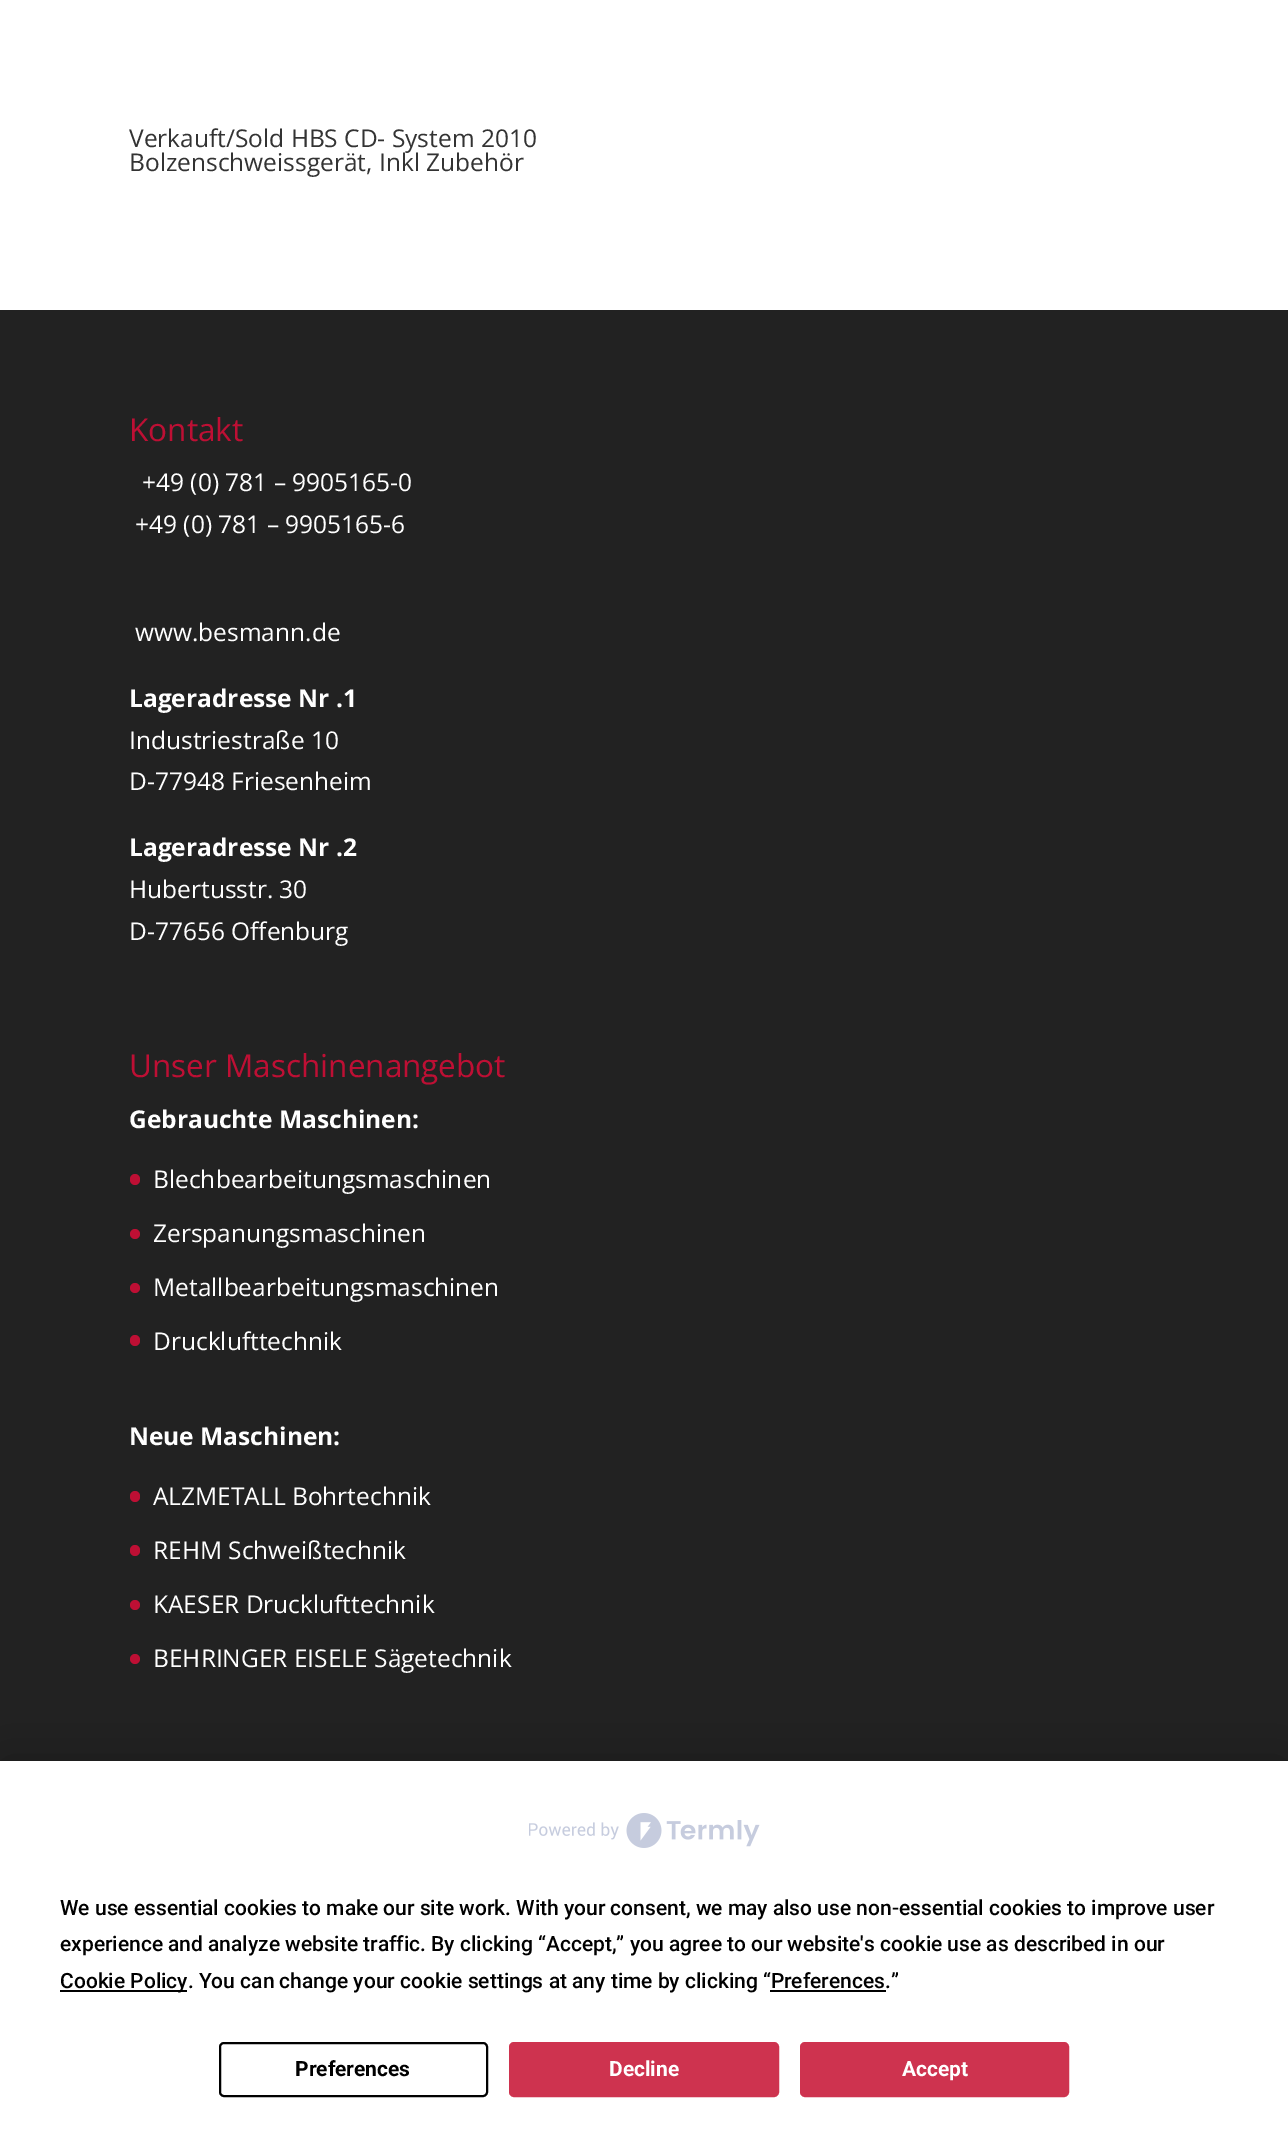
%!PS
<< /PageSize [1288 2148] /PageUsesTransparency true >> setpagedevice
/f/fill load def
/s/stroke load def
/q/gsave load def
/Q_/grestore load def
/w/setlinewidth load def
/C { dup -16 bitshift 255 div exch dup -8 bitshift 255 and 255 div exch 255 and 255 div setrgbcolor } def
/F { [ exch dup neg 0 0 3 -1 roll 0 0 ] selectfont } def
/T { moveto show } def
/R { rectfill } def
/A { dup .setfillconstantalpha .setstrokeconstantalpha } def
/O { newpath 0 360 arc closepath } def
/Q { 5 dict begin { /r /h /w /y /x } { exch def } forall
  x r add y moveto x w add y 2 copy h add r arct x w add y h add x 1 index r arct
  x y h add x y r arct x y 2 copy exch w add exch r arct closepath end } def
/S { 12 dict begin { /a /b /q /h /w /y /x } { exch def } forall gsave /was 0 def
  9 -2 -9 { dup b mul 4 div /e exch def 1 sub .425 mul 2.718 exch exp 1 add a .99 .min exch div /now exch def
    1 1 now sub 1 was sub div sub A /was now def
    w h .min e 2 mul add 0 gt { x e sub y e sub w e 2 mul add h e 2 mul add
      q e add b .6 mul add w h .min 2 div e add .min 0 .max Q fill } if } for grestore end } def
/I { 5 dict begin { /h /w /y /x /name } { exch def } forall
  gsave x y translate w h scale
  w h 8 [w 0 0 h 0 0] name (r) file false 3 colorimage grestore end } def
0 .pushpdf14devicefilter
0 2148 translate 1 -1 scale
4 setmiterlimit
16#FFFFFF C
0 0 1288 2148 R
/OpenSans-Regular 24.5 F
16#333333 C
(Verkauft/Sold HBS CD- System 2010) 129 147 T
(Bolzenschweissgerät, Inkl Zubehör) 129 171 T
16#222222 C
0 310 1288 1451 R
/OpenSans-Regular 31.5 F
16#BE0F34 C
(Kontakt) 129 441 T
/OpenSans-Regular 24.5 F
16#FFFFFF C
(+49 \(0\) 781 – 9905165-0) 142 491 T
(+49 \(0\) 781 – 9905165-6) 135 533 T
(www.besmann.de) 135 641 T
/OpenSans-Bold 24.5 F
(Lageradresse Nr .1) 129 707 T
/OpenSans-Regular 24.5 F
(Industriestraße 10) 129 749 T
(D-77948 Friesenheim) 129 790 T
/OpenSans-Bold 24.5 F
(Lageradresse Nr .2) 129 856 T
/OpenSans-Regular 24.5 F
(Hubertusstr. 30) 129 898 T
(D-77656 Offenburg) 129 940 T
/OpenSans-Regular 31.5 F
16#BE0F34 C
(Unser Maschinenangebot) 129 1077 T
/OpenSans-Bold 24.5 F
16#FFFFFF C
(Gebrauchte Maschinen:) 129 1128 T
16#BE0F34 C
130 1174 10 11 5 Q f
/OpenSans-Regular 24.5 F
16#FFFFFF C
(Blechbearbeitungsmaschinen) 153 1188 T
16#BE0F34 C
135 1234 5 O f
16#FFFFFF C
(Zerspanungsmaschinen) 153 1242 T
16#BE0F34 C
135 1288 5 O f
16#FFFFFF C
(Metallbearbeitungsmaschinen) 153 1296 T
16#BE0F34 C
130 1335 10 11 5 Q f
16#FFFFFF C
(Drucklufttechnik) 153 1350 T
/OpenSans-Bold 24.5 F
(Neue Maschinen:) 129 1445 T
16#BE0F34 C
130 1491 10 11 5 Q f
/OpenSans-Regular 24.5 F
16#FFFFFF C
(ALZMETALL Bohrtechnik) 153 1505 T
16#BE0F34 C
130 1545 10 11 5 Q f
16#FFFFFF C
(REHM Schweißtechnik) 153 1559 T
16#BE0F34 C
135 1605 5 O f
16#FFFFFF C
(KAESER Drucklufttechnik) 153 1613 T
16#BE0F34 C
135 1659 5 O f
16#FFFFFF C
(BEHRINGER EISELE Sägetechnik) 153 1667 T
16#000000 C
0 1761 1288 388 0 30.5 .25 S
16#FFFFFF C
0 1761 1288 387 R
(1.rgb) 529 1813 231 35 I
/Roboto-Medium 21 F
16#000000 C
(We use essential cookies to make our site work. With your consent, we may also use non-essential cookies to improve user) 60 1915 T
(experience and analyze website traffic. By clicking “Accept,” you agree to our website's cookie use as described in our) 60 1951 T
60 1990 127 2 R
(Cookie Policy. You can change your cookie settings at any time by clicking “Preferences.”) 60 1988 T
770 1990 116 2 R
2 w
220 2043 267 53 4 Q s
/Roboto-Bold 21 F
(Preferences) 295 2076 T
16#CE334F C
510 2043 268 53 4 Q q f Q_
s
16#FFFFFF C
(Decline) 609 2076 T
16#CE334F C
801 2043 267 53 4 Q q f Q_
s
16#FFFFFF C
(Accept) 902 2076 T
.poppdf14devicefilter showpage
